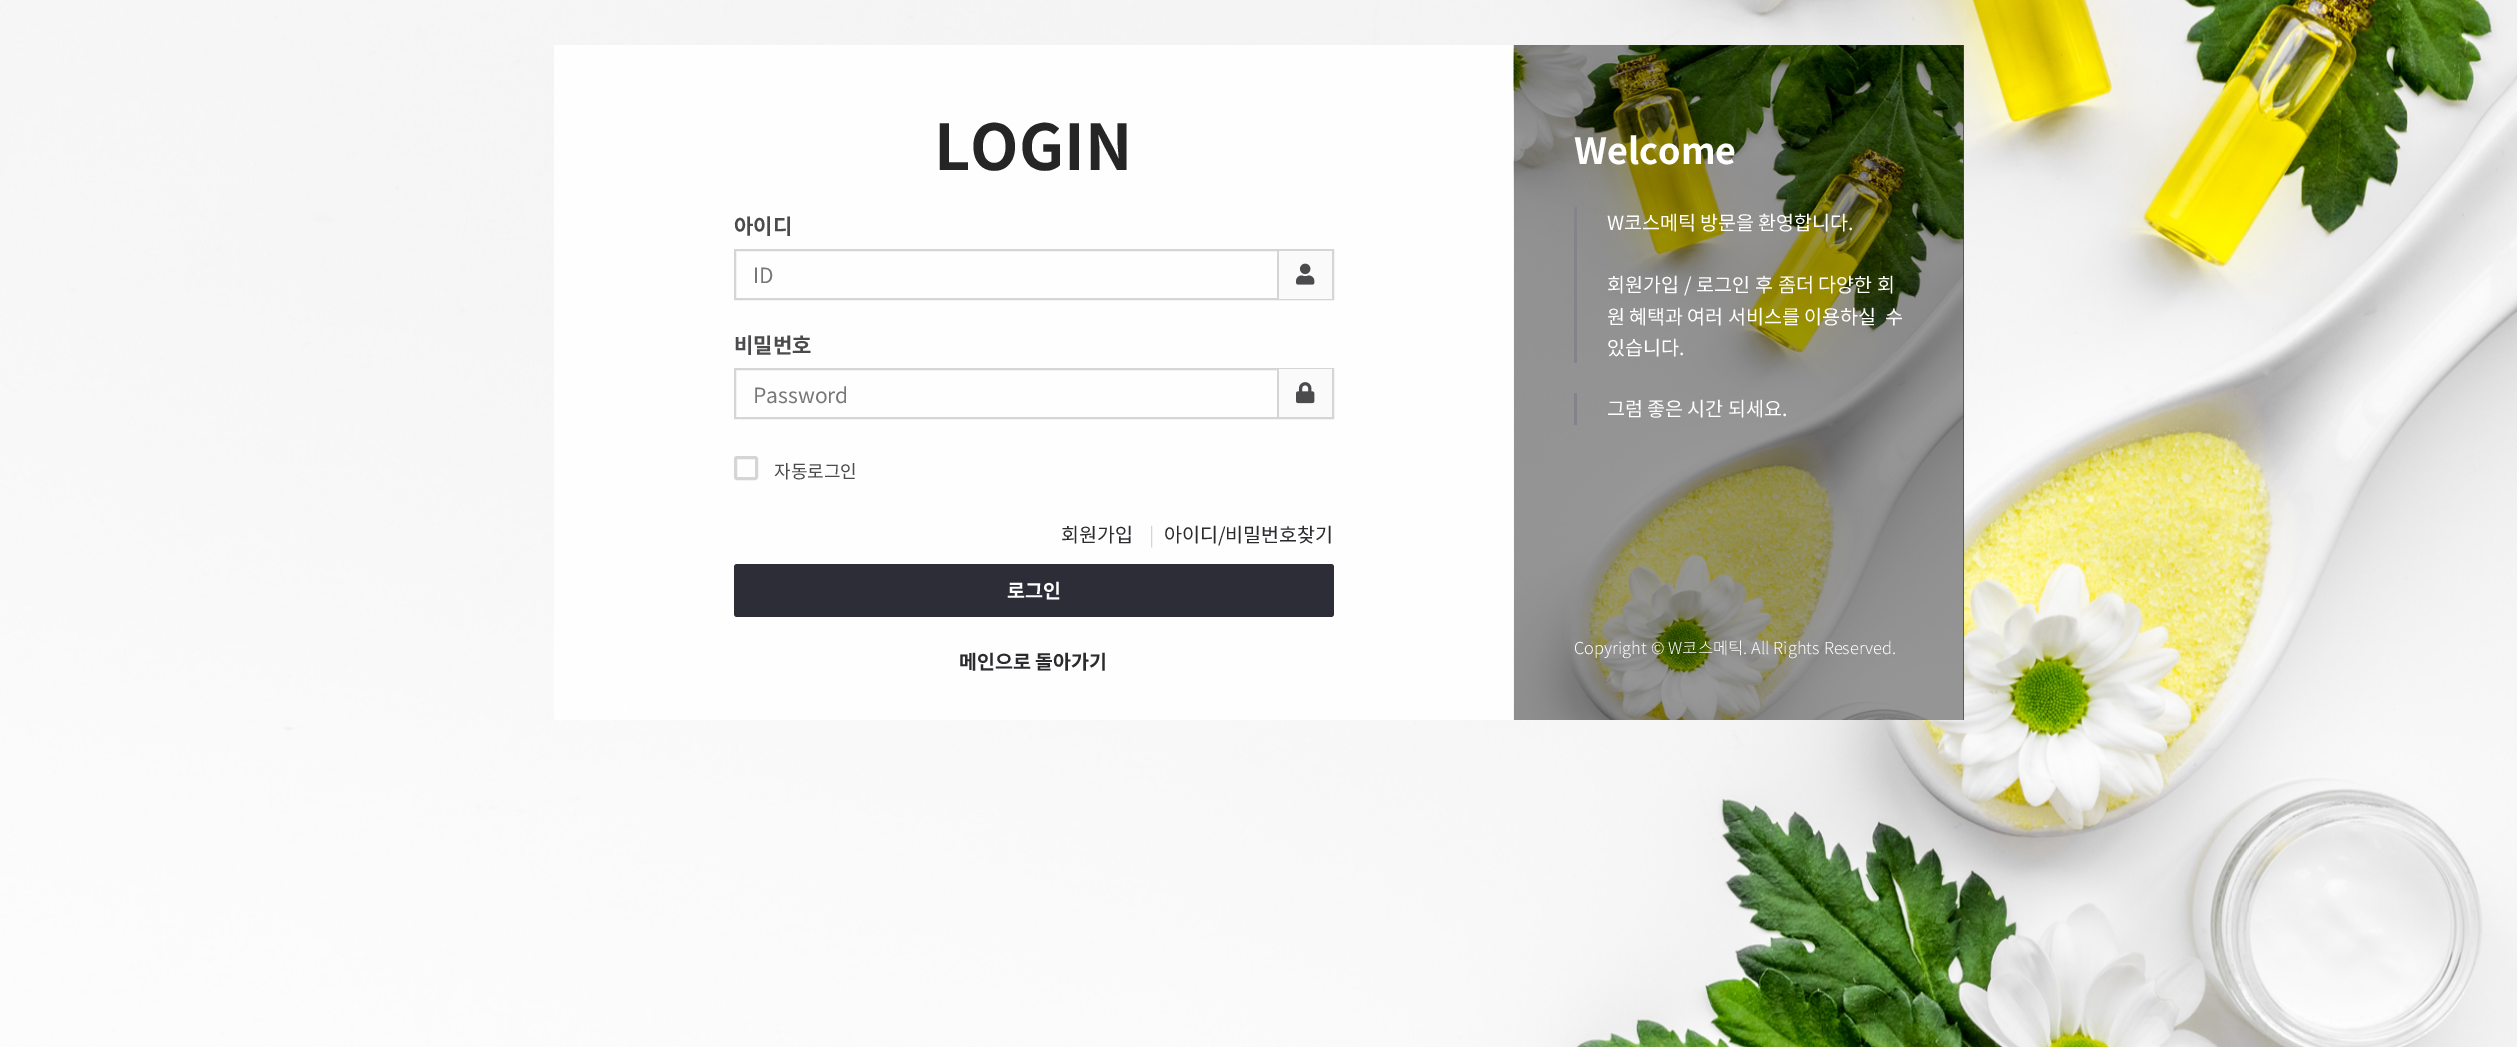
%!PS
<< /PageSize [2517 1047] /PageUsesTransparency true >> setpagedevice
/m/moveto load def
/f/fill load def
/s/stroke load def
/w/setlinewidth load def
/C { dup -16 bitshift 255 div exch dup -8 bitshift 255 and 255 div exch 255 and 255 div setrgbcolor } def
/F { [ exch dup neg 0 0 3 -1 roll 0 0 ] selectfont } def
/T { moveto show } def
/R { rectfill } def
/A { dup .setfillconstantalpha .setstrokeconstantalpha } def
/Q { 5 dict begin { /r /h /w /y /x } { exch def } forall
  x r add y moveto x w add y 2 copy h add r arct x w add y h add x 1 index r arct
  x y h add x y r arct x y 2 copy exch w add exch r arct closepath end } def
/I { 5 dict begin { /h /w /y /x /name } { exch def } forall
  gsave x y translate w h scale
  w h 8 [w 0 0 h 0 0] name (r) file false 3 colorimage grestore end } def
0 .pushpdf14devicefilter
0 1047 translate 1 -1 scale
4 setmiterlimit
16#FFFFFF C
0 0 2517 1047 R
(1.rgb) 0 0 2517 1047 I
0.9 A
554 45 960 675 R
/NotoSansKR-Bold 63 F
1 A
16#252525 C
(LOGIN) 934 170 T
/NotoSansKR-Bold 21 F
16#4B4B4D C
(아이디) 734 234 T
16#D5D5D5 C
2 w
735 250 598 49 rectstroke
/NotoSansKR-Regular 21 F
16#777777 C
(ID) 753 283 T
16#FAFAFA C
1279 251 53 48 R
16#D5D5D5 C
1277 251 2 48 R
(2.rgb) 1296 263 19 22 I
/NotoSansKR-Bold 21 F
16#4B4B4D C
(비밀번호) 734 353 T
16#D5D5D5 C
735 369 598 49 rectstroke
/NotoSansKR-Regular 21 F
16#777777 C
(Password) 753 403 T
16#FAFAFA C
1279 369 53 48 R
16#D5D5D5 C
1277 369 2 48 R
(3.rgb) 1296 382 19 22 I
3 w
735.5 457.5 21 21 1.5 Q s
/NotoSansKR-Regular 18 F
16#4B4B4D C
(자동로그인) 774 478 T
/NotoSansKR-Regular 19.5 F
16#2B2B2E C
(회원가입) 1061 542 T
16#D5D5D5 C
(|) 1149 542 T
16#2B2B2E C
(아이디/비밀번호찾기) 1164 542 T
16#2D2D38 C
734 564 600 53 3 Q f
/NotoSansKR-Bold 19.5 F
16#FFFFFF C
(로그인) 1007 598 T
16#2B2B2E C
(메인으로 돌아가기) 959 669 T
16#757578 C
1963 45 1 675 R
(4.rgb) 1513 45 451 675 I
0.4 A
16#000000 C
1514 45 450 675 R
/NotoSansKR-Bold 36 F
1 A
16#FFFFFF C
(Welcome) 1574 164 T
16#83848B C
1574 207 3 156 R
/NotoSansKR-Regular 19.5 F
16#FFFFFF C
(W코스메틱 방문을 환영합니다.) 1607 230 T
1607 292 m .5 0 32 (회원가입 / 로그인 후 좀더 다양한 회) widthshow
(원 혜택과 여러 서비스를 이용하실) 1607 324 T
(수) 1885 324 T
(있습니다.) 1607 355 T
16#83848B C
1574 393 3 32 R
16#FFFFFF C
(그럼 좋은 시간 되세요.) 1607 416 T
/NotoSansKR-Light 16.5 F
1574 654 m .25 0 32 (Copyright © W코스메틱. All Rights Reserved.) widthshow
.poppdf14devicefilter showpage
